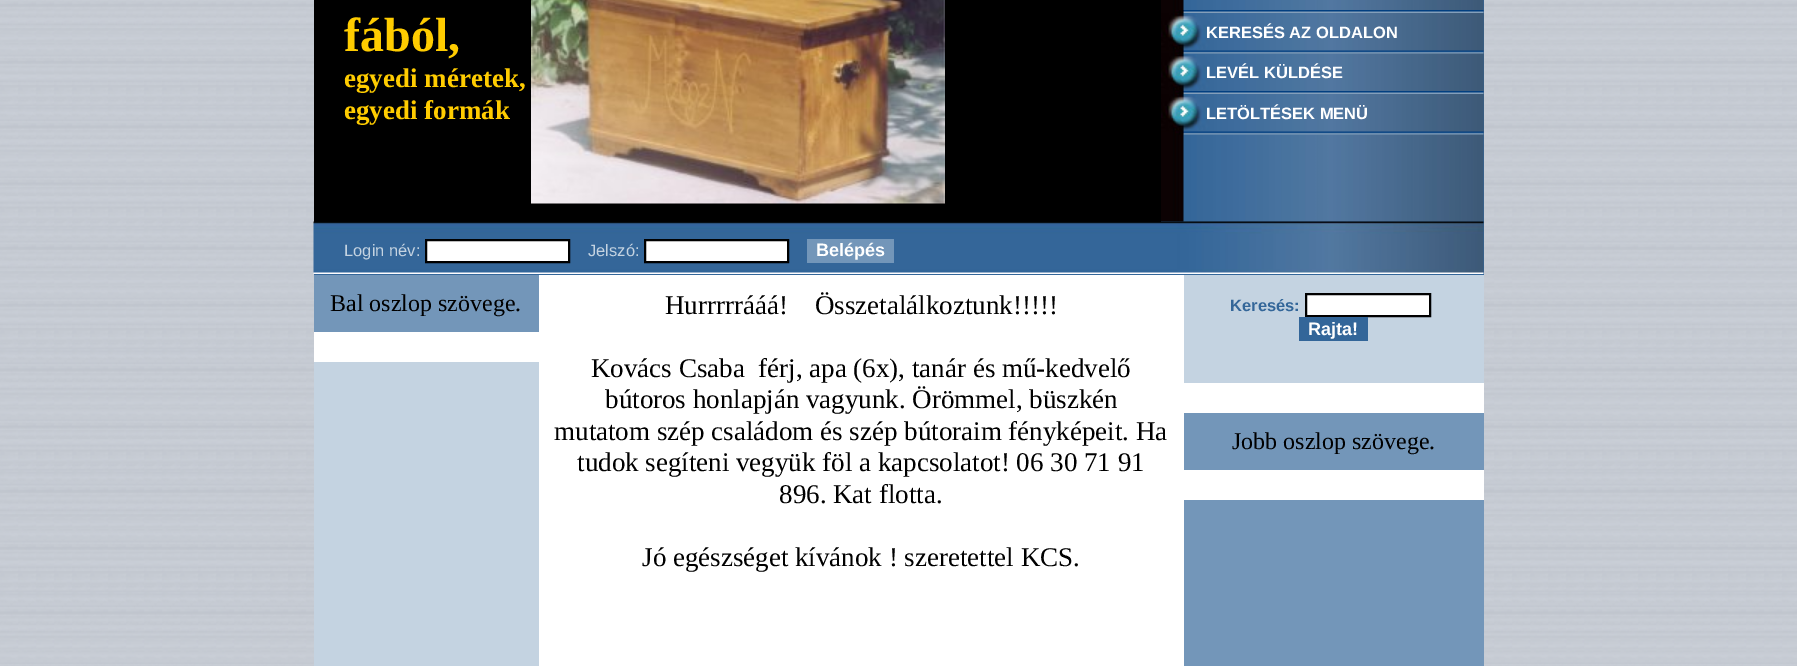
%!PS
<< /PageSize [1797 666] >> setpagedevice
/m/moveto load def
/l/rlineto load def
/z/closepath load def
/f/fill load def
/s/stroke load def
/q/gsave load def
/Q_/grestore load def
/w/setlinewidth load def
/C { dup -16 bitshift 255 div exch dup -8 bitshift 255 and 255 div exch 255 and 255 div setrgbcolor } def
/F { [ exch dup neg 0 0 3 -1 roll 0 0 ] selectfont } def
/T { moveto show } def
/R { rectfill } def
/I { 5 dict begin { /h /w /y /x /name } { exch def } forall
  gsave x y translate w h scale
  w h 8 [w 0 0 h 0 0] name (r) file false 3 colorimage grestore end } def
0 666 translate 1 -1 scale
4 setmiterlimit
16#FFFFFF C
0 0 1797 666 R
(1.rgb) 0 0 1797 666 I
16#000000 C
314 0 847 222 R
(2.rgb) 531 0 414 204 I
/LiberationSerif-Bold 48 F
16#FFCC00 C
(fából,) 344 51 T
/LiberationSerif-Bold 27 F
(egyedi méretek,) 344 87 T
(egyedi formák) 344 119 T
16#336699 C
1161 0 323 222 R
(3.rgb) 1161 0 323 222 I
(4.rgb) 1175 10 309 3 I
(5.rgb) 1161 13 323 38 I
/LiberationSans-Bold 16.5 F
16#FFFFFF C
(KERESÉS AZ OLDALON) 1206 38 T
(7.rgb) 1161 53 323 38 I
(6.rgb) 1175 50 309 4 I
(LEVÉL KÜLDÉSE) 1206 78 T
(4.rgb) 1175 91 309 3 I
(8.rgb) 1161 94 323 38 I
(LETÖLTÉSEK MENÜ) 1206 119 T
(9.rgb) 1175 131 309 4 I
16#336699 C
314 222 1170 53 R
(10.rgb) 313 221 1171 53 I
/LiberationSans-Regular 16.5 F
16#C4D3E1 C
(Login név:) 344 256 T
16#FFFFFF C
426 240 m 143 0 l 0 22 l -143 0 l z q f Q_
16#000000 C
2 w
s
16#C4D3E1 C
(Jelszó:) 588 256 T
16#FFFFFF C
645 240 m 143 0 l 0 22 l -143 0 l z q f Q_
16#000000 C
s
16#7396B9 C
807 239 87 24 R
/LiberationSans-Bold 18 F
16#FFFFFF C
(Belépés) 816 256 T
16#7396B9 C
314 275 225 57 R
/LiberationSerif-Regular 24 F
16#000000 C
(Bal oszlop szövege.) 330 311 T
16#FFFFFF C
314 332 225 30 R
16#C4D3E1 C
314 362 225 304 R
16#FFFFFF C
539 275 645 391 R
/LiberationSerif-Regular 27 F
16#000000 C
(Hurrrrrááá!    Összetalálkoztunk!!!!!) 665 314 T
(Kovács Csaba  férj, apa \(6x\), tanár és mű-kedvelő) 591 377 T
(bútoros honlapján vagyunk. Örömmel, büszkén) 605 408 T
(mutatom szép családom és szép bútoraim fényképeit. Ha) 554 440 T
(tudok segíteni vegyük föl a kapcsolatot! 06 30 71 91) 577 471 T
(896. Kat flotta.) 779 503 T
(Jó egészséget kívánok ! szeretettel KCS.) 642 566 T
16#7396B9 C
1184 413 300 253 R
16#C4D3E1 C
1184 275 300 108 R
/LiberationSans-Bold 16.5 F
16#336699 C
(Keresés:) 1230 311 T
16#FFFFFF C
1306 294 m 124 0 l 0 22 l -124 0 l z q f Q_
16#000000 C
s
16#336699 C
1299 317 69 24 R
/LiberationSans-Bold 18 F
16#FFFFFF C
(Rajta!) 1308 335 T
1184 383 300 30 R
/LiberationSerif-Regular 24 F
16#000000 C
(Jobb oszlop szövege.) 1232 449 T
16#FFFFFF C
1184 470 300 30 R
showpage
